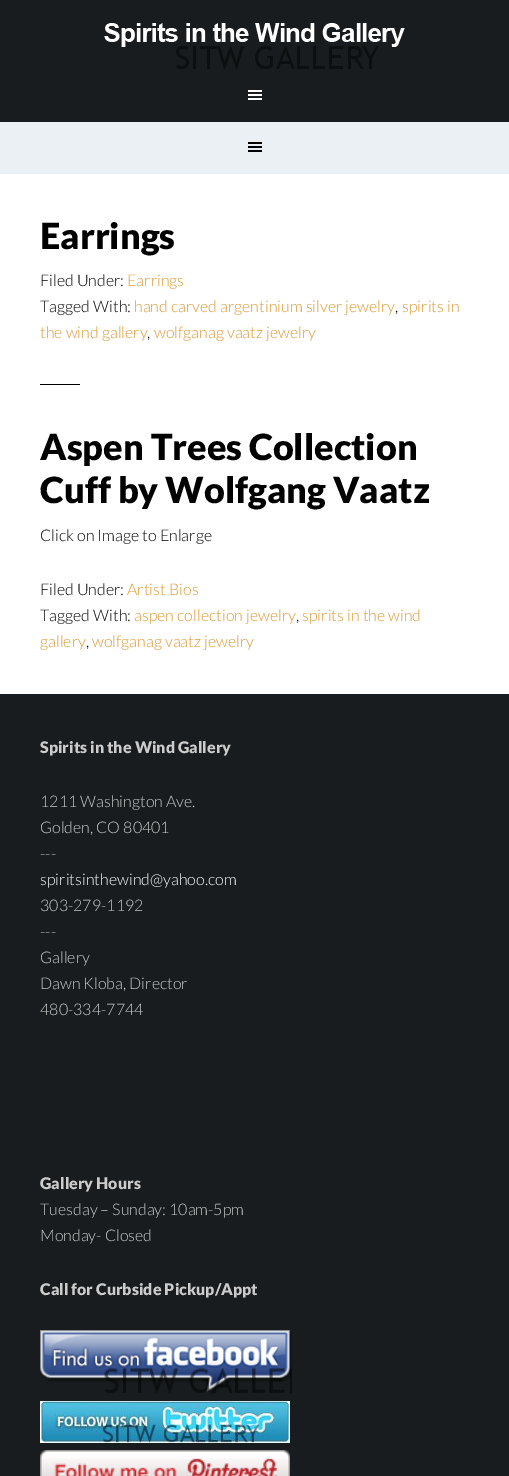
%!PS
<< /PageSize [509 1476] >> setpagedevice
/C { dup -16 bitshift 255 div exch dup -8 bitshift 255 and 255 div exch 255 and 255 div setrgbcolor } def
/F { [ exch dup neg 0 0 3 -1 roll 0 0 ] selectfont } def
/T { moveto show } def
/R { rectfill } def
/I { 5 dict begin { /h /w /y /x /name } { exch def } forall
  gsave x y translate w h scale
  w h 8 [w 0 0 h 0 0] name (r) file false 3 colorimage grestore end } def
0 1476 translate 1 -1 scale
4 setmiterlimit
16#181C1E C
0 0 509 1476 R
(1.rgb) 104 23 301 46 I
(2.rgb) 248 90 14 10 I
16#FFFFFF C
0 174 509 520 R
16#EAF0F3 C
0 122 509 52 R
(3.rgb) 248 142 14 10 I
/Lato-Black 36 F
16#000000 C
(Earrings) 40 249 T
/Lato-Light 16 F
(Filed Under:) 40 286 T
16#DD9933 C
(Earrings) 127 286 T
16#000000 C
(Tagged With:) 40 312 T
16#DD9933 C
(hand carved argentinium silver jewelry) 134 312 T
16#000000 C
(,) 395 312 T
16#DD9933 C
(spirits in) 402 312 T
(the wind gallery) 40 338 T
16#000000 C
(,) 147 338 T
16#DD9933 C
(wolfganag vaatz jewelry) 154 338 T
16#000000 C
40 384 40 1 R
/Lato-Black 36 F
(Aspen Trees Collection) 40 460 T
(Cuff by Wolfgang Vaatz) 40 503 T
/Lato-Light 16 F
(Click on Image to Enlarge) 40 541 T
(Filed Under:) 40 595 T
16#DD9933 C
(Artist Bios) 127 595 T
16#000000 C
(Tagged With:) 40 621 T
16#DD9933 C
(aspen collection jewelry) 134 621 T
16#000000 C
(,) 296 621 T
16#DD9933 C
(spirits in the wind) 302 621 T
(gallery) 40 647 T
16#000000 C
(,) 86 647 T
16#DD9933 C
(wolfganag vaatz jewelry) 92 647 T
/Lato-Black 16 F
16#CCCCCC C
(Spirits in the Wind Gallery) 40 753 T
/Lato-Light 16 F
(1211 Washington Ave.) 40 807 T
(Golden, CO 80401) 40 833 T
(---) 40 859 T
16#FFFFFF C
(spiritsinthewind@yahoo.com) 40 885 T
16#CCCCCC C
(303-279-1192) 40 911 T
(---) 40 937 T
(Gallery) 40 963 T
(Dawn Kloba, Director) 40 989 T
(480-334-7744) 40 1015 T
/Lato-Black 16 F
(Gallery Hours) 40 1189 T
/Lato-Light 16 F
(Tuesday – Sunday: 10am-5pm) 40 1215 T
(Monday- Closed) 40 1241 T
/Lato-Black 16 F
(Call for Curbside Pickup/Appt) 40 1295 T
(4.rgb) 40 1330 252 64 I
(5.rgb) 40 1401 250 42 I
(6.rgb) 40 1450 250 26 I
showpage
